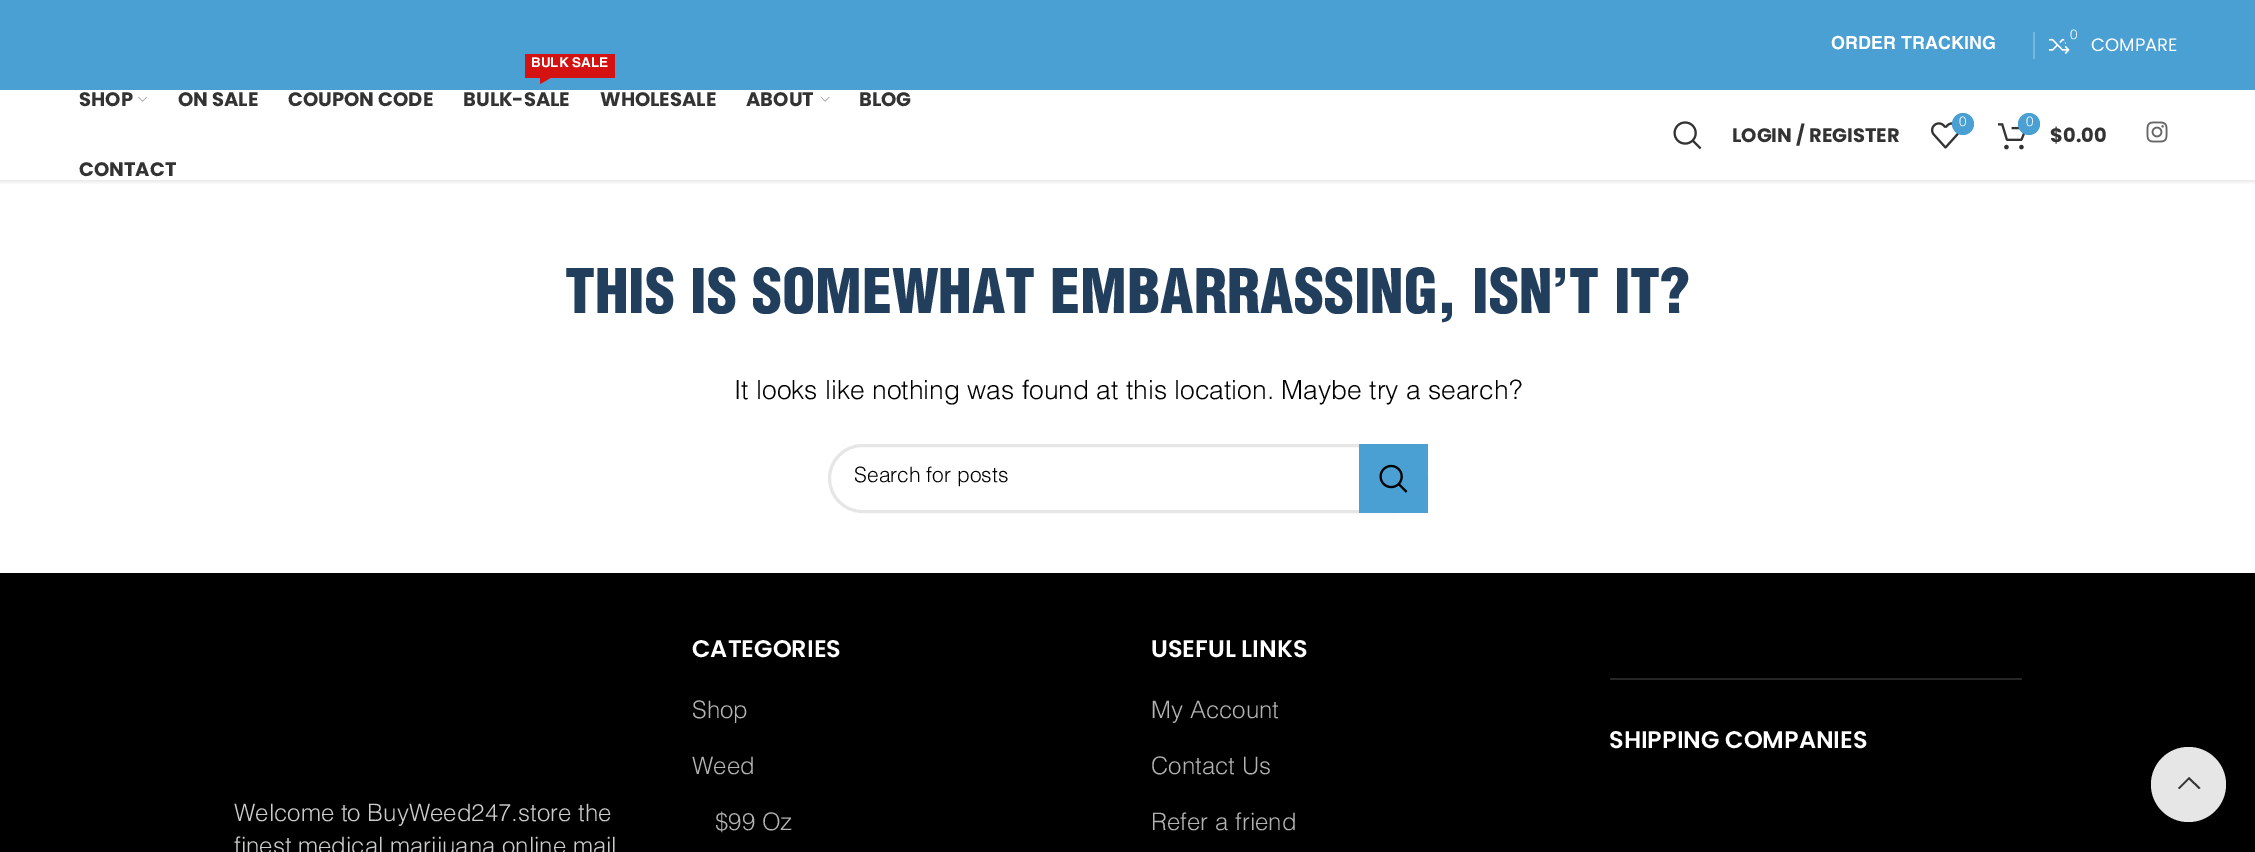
%!PS
<< /PageSize [2255 852] /PageUsesTransparency true >> setpagedevice
/m/moveto load def
/l/rlineto load def
/z/closepath load def
/f/fill load def
/s/stroke load def
/q/gsave load def
/Q_/grestore load def
/w/setlinewidth load def
/C { dup -16 bitshift 255 div exch dup -8 bitshift 255 and 255 div exch 255 and 255 div setrgbcolor } def
/F { [ exch dup neg 0 0 3 -1 roll 0 0 ] selectfont } def
/T { moveto show } def
/R { rectfill } def
/A { dup .setfillconstantalpha .setstrokeconstantalpha } def
/O { newpath 0 360 arc closepath } def
/Q { 5 dict begin { /r /h /w /y /x } { exch def } forall
  x r add y moveto x w add y 2 copy h add r arct x w add y h add x 1 index r arct
  x y h add x y r arct x y 2 copy exch w add exch r arct closepath end } def
/S { 12 dict begin { /a /b /q /h /w /y /x } { exch def } forall gsave /was 0 def
  9 -2 -9 { dup b mul 4 div /e exch def 1 sub .425 mul 2.718 exch exp 1 add a .99 .min exch div /now exch def
    1 1 now sub 1 was sub div sub A /was now def
    w h .min e 2 mul add 0 gt { x e sub y e sub w e 2 mul add h e 2 mul add
      q e add b .6 mul add w h .min 2 div e add .min 0 .max Q fill } if } for grestore end } def
/I { 5 dict begin { /h /w /y /x /name } { exch def } forall
  gsave x y translate w h scale
  w h 8 [w 0 0 h 0 0] name (r) file false 3 colorimage grestore end } def
0 .pushpdf14devicefilter
0 852 translate 1 -1 scale
4 setmiterlimit
16#FFFFFF C
0 0 2255 852 R
q
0 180 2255 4 rectclip
16#000000 C
0 2 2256 180 0 2 .1 S
Q_
16#4A9FD3 C
0 0 2255 90 R
/Helvetica-Bold 18 F
16#FFFFFF C
(ORDER TRACKING) 1831 49 T
16#77B7DE C
2033 32 2 27 R
(1.rgb) 2049 36 21 18 I
16#4A9FD3 C
2074 37 10 O f
/Helvetica-Light 13.5 F
16#FFFFFF C
(0) 2070 39 T
/Poppins-Regular 18 F
(COMPARE) 2091 51 T
/Poppins-Bold 19.5 F
16#333333 C
(SHOP) 79 106 T
(2.rgb) 138 96 9 6 I
(ON SALE) 178 106 T
(COUPON CODE) 288 106 T
16#D41212 C
525 54 90 24 R
/Helvetica-Bold 13.5 F
16#FFFFFF C
(BULK SALE) 531 67 T
16#D41212 C
540 78 m 10.5 0 l -10.5 6 l z f
/Poppins-Bold 19.5 F
16#333333 C
(BULK-SALE) 463 106 T
(WHOLESALE) 600 106 T
(ABOUT) 746 106 T
(3.rgb) 820 96 10 6 I
(BLOG) 859 106 T
(CONTACT) 79 176 T
(4.rgb) 1673 121 29 29 I
(LOGIN / REGISTER) 1732 142 T
(5.rgb) 1931 122 28 27 I
16#4A9FD3 C
1963 124 11 O f
/Helvetica-Light 13.5 F
16#FFFFFF C
(0) 1959 126 T
(6.rgb) 1998 123 27 27 I
16#4A9FD3 C
2029 124 11 O f
16#FFFFFF C
(0) 2026 126 T
/Poppins-Bold 19.5 F
16#333333 C
($0.00) 2050 142 T
(7.rgb) 2146 121 22 22 I
/Helvetica-Black 60 F
16#213E5C C
(THIS IS SOMEWHAT EMBARRASSING, ISN’T IT?) 565 313 T
/Helvetica-Light 26.4 F
16#000000 C
(It looks like nothing was found at this location. Maybe try a search?) 734 399 T
16#E6E6E6 C
3 w
829.5 445.5 597 66 33 Q s
/Helvetica-Light 21 F
16#000000 C
(Search for posts) 854 482 T
16#4A9FD3 C
1359 444 69 69 R
(8.rgb) 1379 464 29 29 I
16#000000 C
0 573 2255 279 R
/Poppins-SemiBold 24 F
16#FFFFFF C
(CATEGORIES) 692 657 T
/Helvetica-Light 24 F
16#B3B3B3 C
(Shop) 692 718 T
(Weed) 692 774 T
($99 Oz) 715 830 T
/Poppins-SemiBold 24 F
16#FFFFFF C
(USEFUL LINKS) 1151 657 T
/Helvetica-Light 24 F
16#B3B3B3 C
(My Account) 1151 718 T
(Contact Us) 1151 774 T
(Refer a friend) 1151 830 T
16#262626 C
1610 678 412 2 R
/Poppins-SemiBold 24 F
16#FFFFFF C
(SHIPPING COMPANIES) 1609 748 T
/Helvetica-Light 24 F
16#CCCCCC C
(Welcome to BuyWeed247.store the) 234 821 T
(finest medical marijuana online mail) 234 854 T
16#E6E6E6 C
2188.5 784.5 37.5 O f
16#333333 C
2199 789 m 1.5 -1 l -11.5 -11 l -11 11 l 1.5 1 l 9.5 -9.5 l z f
.poppdf14devicefilter showpage
